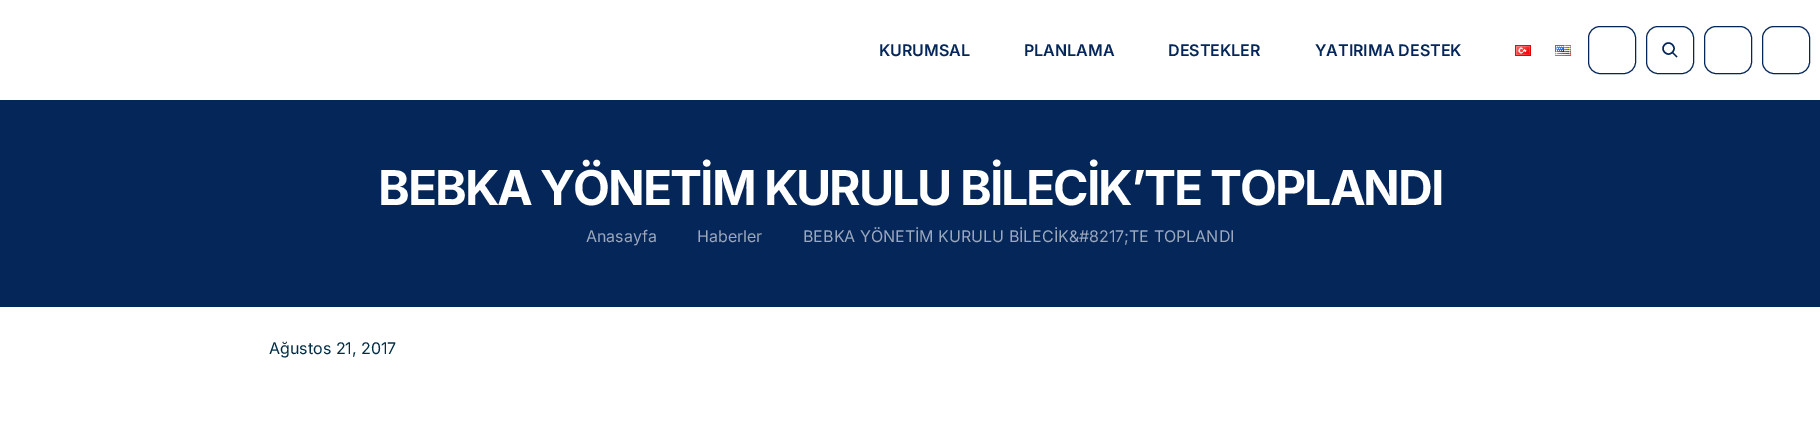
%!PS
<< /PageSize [1820 431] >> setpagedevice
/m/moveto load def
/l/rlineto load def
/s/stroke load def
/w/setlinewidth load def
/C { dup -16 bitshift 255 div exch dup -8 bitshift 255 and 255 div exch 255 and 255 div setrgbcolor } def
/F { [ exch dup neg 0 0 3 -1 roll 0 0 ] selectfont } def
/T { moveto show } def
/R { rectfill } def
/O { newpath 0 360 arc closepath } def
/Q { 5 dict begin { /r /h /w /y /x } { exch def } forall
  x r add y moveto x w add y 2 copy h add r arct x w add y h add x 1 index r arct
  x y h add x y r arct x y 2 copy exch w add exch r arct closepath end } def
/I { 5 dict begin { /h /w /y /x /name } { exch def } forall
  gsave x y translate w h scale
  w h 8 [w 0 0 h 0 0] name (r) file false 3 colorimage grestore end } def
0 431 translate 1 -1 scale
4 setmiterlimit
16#FFFFFF C
0 0 1820 431 R
/Inter-SemiBold 16 F
16#052659 C
(KURUMSAL) 879 56 T
(PLANLAMA) 1024 56 T
(DESTEKLER) 1168 56 T
(YATIRIMA DESTEK) 1315 56 T
(1.rgb) 1515 45 16 11 I
(2.rgb) 1555 45 16 11 I
1588.5 26.5 47 47 11.5 Q s
1646.5 26.5 47 47 11.5 Q s
1.4 w
1668.5 48.5 5.5 O s
1672.5 52.5 m 4.5 4.5 l s
1 w
1704.5 26.5 47 47 11.5 Q s
1762.5 26.5 47 47 11.5 Q s
0 100 1820 207 R
/Inter-Bold 48 F
16#FFFFFF C
378 205 m -2 0 (BEBKA YÖNETİM KURULU BİLECİK’TE TOPLANDI) ashow
/Inter-Regular 16 F
16#9BA8BD C
(Anasayfa) 586 242 T
(Haberler) 697 242 T
(BEBKA YÖNETİM KURULU BİLECİK&#8217;TE TOPLANDI) 803 242 T
16#022C44 C
(Ağustos 21, 2017) 269 354 T
showpage
